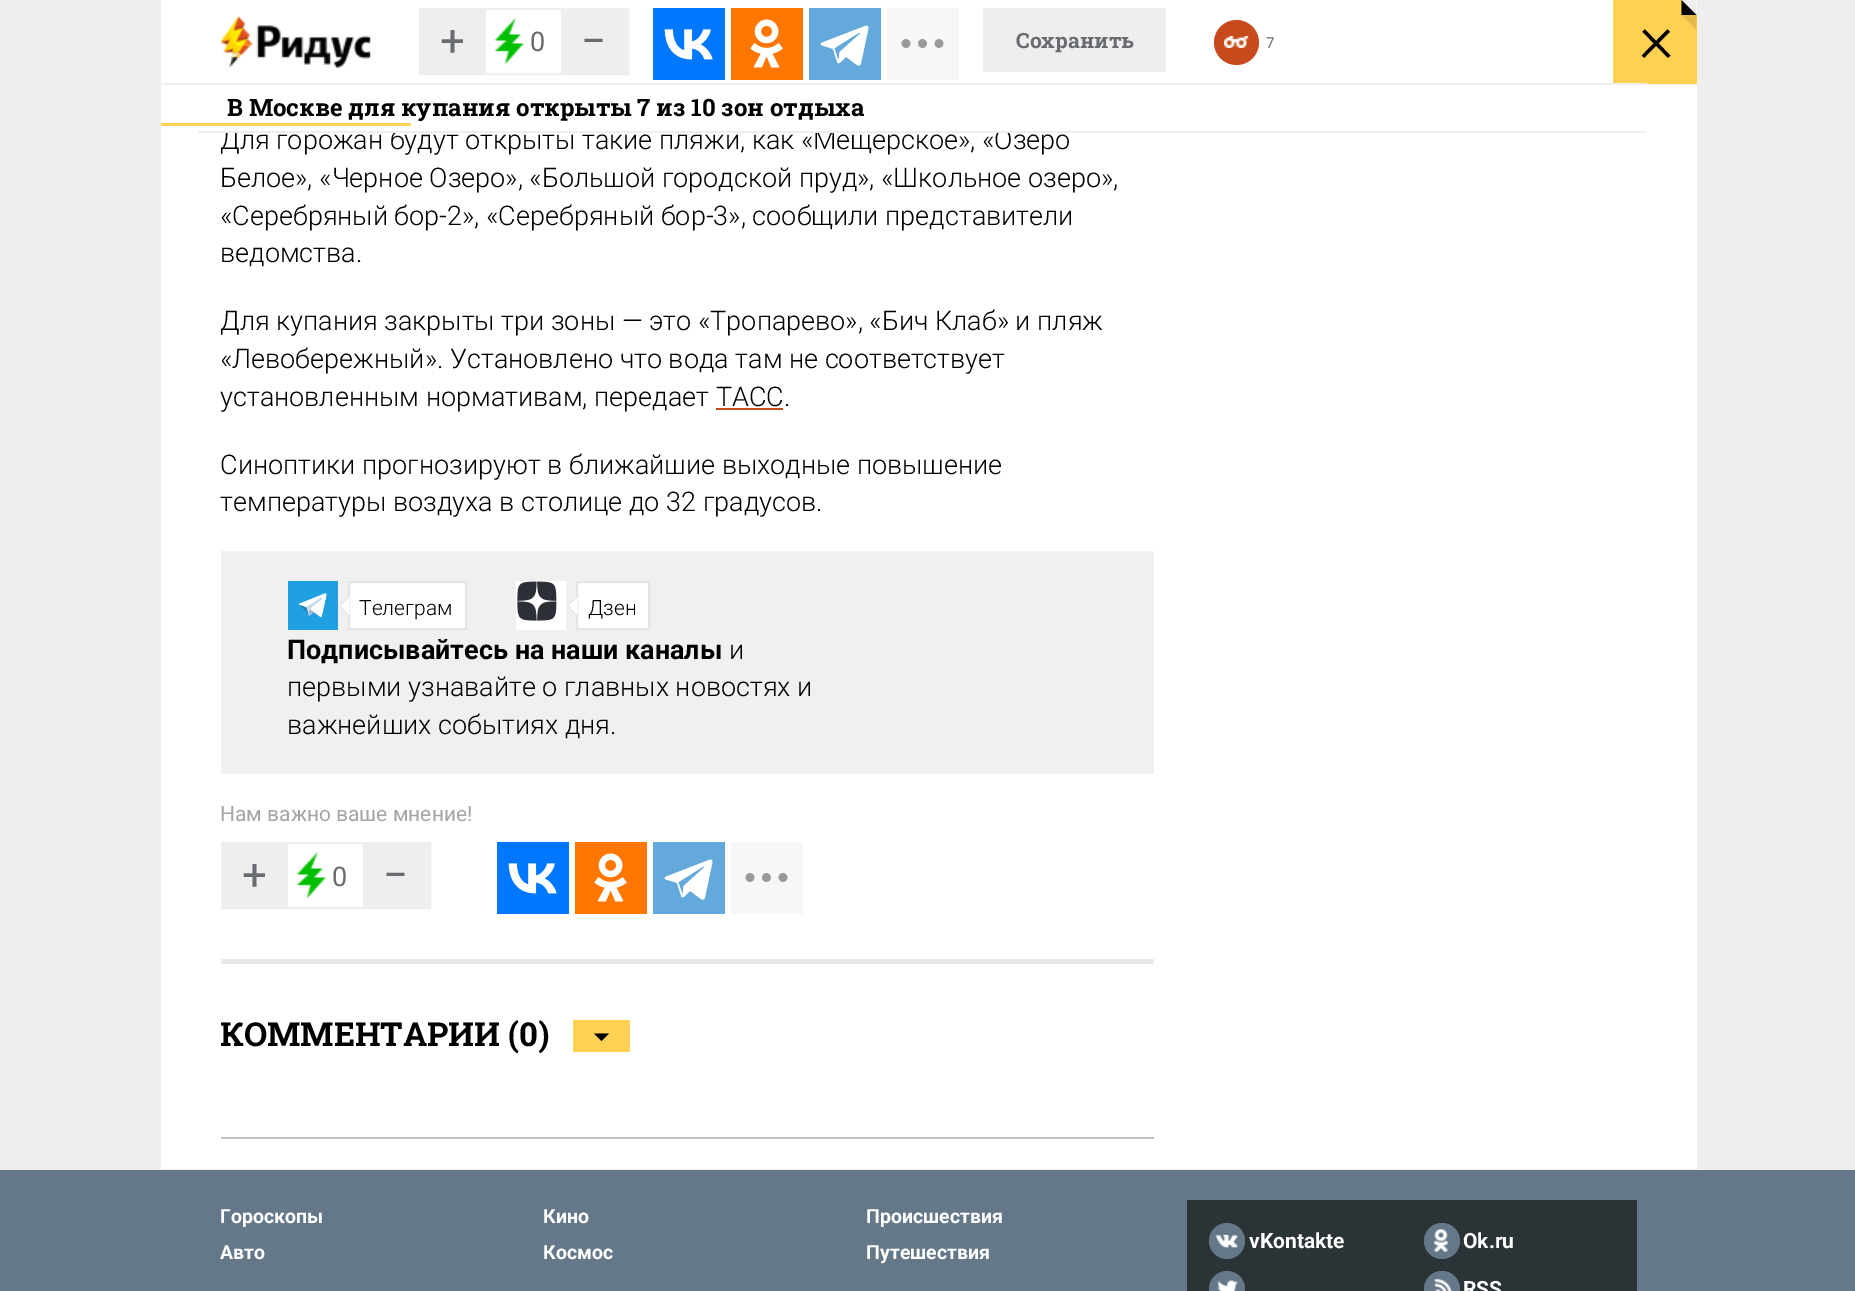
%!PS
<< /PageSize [1855 1291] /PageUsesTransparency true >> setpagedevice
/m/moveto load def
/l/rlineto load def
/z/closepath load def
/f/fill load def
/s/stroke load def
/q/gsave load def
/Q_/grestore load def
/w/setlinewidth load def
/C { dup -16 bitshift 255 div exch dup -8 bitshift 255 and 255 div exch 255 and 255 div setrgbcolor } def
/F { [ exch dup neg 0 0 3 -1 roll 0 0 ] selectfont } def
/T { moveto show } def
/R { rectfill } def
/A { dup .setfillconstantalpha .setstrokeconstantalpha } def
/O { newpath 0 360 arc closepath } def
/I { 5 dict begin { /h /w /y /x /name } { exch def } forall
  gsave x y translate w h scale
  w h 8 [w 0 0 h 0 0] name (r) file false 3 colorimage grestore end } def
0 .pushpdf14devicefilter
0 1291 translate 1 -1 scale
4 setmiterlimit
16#EEEEEE C
0 0 1855 1291 R
16#FFFFFF C
161 0 1536 83 R
(1.rgb) 220 16 151 52 I
16#EEEEEE C
2 w
420 9 208 65 rectstroke
421 10 65 63 R
/Roboto-Regular 44 F
16#686B6F C
(+) 440 56 T
(2.rgb) 494 17 30 48 I
/Roboto-Regular 27 F
(0) 530 51 T
16#EEEEEE C
561 10 66 63 R
/Roboto-Regular 44 F
16#686B6F C
(−) 581 56 T
16#0077FF C
653 8 72 72 R
(3.rgb) 664 29 49 31 I
16#FF7700 C
731 8 72 72 R
(4.rgb) 750 19 33 49 I
16#64A9DC C
809 8 72 72 R
(5.rgb) 820 25 49 41 I
16#F7F7F7 C
887 8 72 72 R
(6.rgb) 901 39 43 9 I
16#EEEEEE C
983 8 183 64 R
/RobotoSlab-Bold 21 F
16#686B6F C
(Сохранить) 1016 48 T
16#C64A1B C
1236.5 42.5 22.5 O f
(7.rgb) 1224 36 25 12 I
/Roboto-Regular 15 F
16#686B6F C
(7) 1266 48 T
16#FFD051 C
1613 0 69 84 R
/RobotoSlab-Light 68 F
16#000000 C
(×) 1639 66 T
16#FFD051 C
1682 15 15 69 R
16#EEEEEE C
1681.5 0 m 15 0 l -7.5 7.5 l z f
1696.5 0 m 0 15 l -7.5 -7.5 l z f
16#000000 C
1696.5 15 m -15 0 l 7.5 -7.5 l z f
1681.5 15 m 0 -15 l 7.5 7.5 l z f
16#E6BB49 C
1681.5 15 m 15 0 l -7.5 7.5 l z f
0.1 A
16#000000 C
1696.5 15 m 0 15 l -7.5 -7.5 l z f
1 A
16#FFFFFF C
161 85 1536 1084 R
/Roboto-Light 27 F
16#000000 C
(Для горожан будут открыты такие пляжи, как «Мещерское», «Озеро) 220 149 T
16#FFFFFF C
225 128 783 3 R
16#EEEEEE C
1613 83 34 1 R
198 131 1449 2 R
/RobotoSlab-Bold 24 F
16#000000 C
(В Москве для купания открыты 7 из 10 зон отдыха) 227 116 T
16#FFD051 C
161 123 250 3 R
/Roboto-Light 27 F
16#000000 C
(Белое», «Черное Озеро», «Большой городской пруд», «Школьное озеро»,) 220 187 T
(«Серебряный бор-2», «Серебряный бор-3», сообщили представители) 220 225 T
(ведомства.) 220 262 T
(Для купания закрыты три зоны — это «Тропарево», «Бич Клаб» и пляж) 220 330 T
(«Левобережный». Установлено что вода там не соответствует) 220 368 T
(установленным нормативам, передает ТАСС.) 220 406 T
16#C64A1B C
716 408 67 2 R
16#000000 C
(Синоптики прогнозируют в ближайшие выходные повышение) 220 474 T
(температуры воздуха в столице до 32 градусов.) 220 511 T
16#F0F0F0 C
221 551 933 223 R
(8.rgb) 288 581 50 49 I
16#FFFFFF C
349 582 m 117 0 l 0 47 l -117 0 l z q f Q_
16#E4E4E4 C
s
348 597 m 0 18 l -9 -9 l z f
16#FFFFFF C
349.5 597 m 0 18 l -9 -9 l z f
/Roboto-Light 21 F
16#000000 C
(Телеграм) 359 615 T
16#FFFFFF C
516 581 50 49 R
(9.rgb) 517 581 40 40 I
577 582 m 72 0 l 0 47 l -72 0 l z q f Q_
16#E4E4E4 C
s
576 597 m 0 18 l -9 -9 l z f
16#FFFFFF C
577.5 597 m 0 18 l -9 -9 l z f
16#000000 C
(Дзен) 588 615 T
/Roboto-Bold 27 F
(Подписывайтесь на наши каналы) 287 659 T
/Roboto-Light 27 F
(и) 729 659 T
(первыми узнавайте о главных новостях и) 287 696 T
(важнейших событиях дня.) 287 734 T
/Roboto-Regular 21 F
16#A6A5A5 C
(Нам важно ваше мнение!) 220 821 T
16#EEEEEE C
222 843 208 65 rectstroke
223 844 65 63 R
/Roboto-Regular 44 F
16#686B6F C
(+) 242 890 T
(2.rgb) 296 851 30 48 I
/Roboto-Regular 27 F
(0) 332 886 T
16#EEEEEE C
363 844 66 63 R
/Roboto-Regular 44 F
16#686B6F C
(−) 383 890 T
16#0077FF C
497 842 72 72 R
(3.rgb) 508 863 49 31 I
16#FF7700 C
575 842 72 72 R
(4.rgb) 594 853 33 49 I
16#64A9DC C
653 842 72 72 R
(5.rgb) 664 859 49 41 I
16#F7F7F7 C
731 842 72 72 R
(6.rgb) 745 873 43 9 I
16#E8E8E8 C
221 959 933 5 R
16#C2C2C2 C
221 1137 933 2 R
/RobotoSlab-Bold 33 F
16#000000 C
(КОММЕНТАРИИ \(0\)) 220 1046 T
16#FFD051 C
573 1020 57 32 R
16#000000 C
594 1033.5 m 15 0 l -7.5 7.5 l z f
16#657889 C
0 1170 1855 121 R
/Roboto-Bold 19.5 F
16#FFFFFF C
(Гороскопы) 220 1223 T
(Кино) 543 1223 T
(Происшествия) 866 1223 T
(Авто) 220 1259 T
(Космос) 543 1259 T
(Путешествия) 866 1259 T
16#2A3436 C
1187 1200 450 91 R
16#657889 C
1227 1241 18 O f
(10.rgb) 1215 1234 23 14 I
/Roboto-Bold 21 F
16#FFFFFF C
(vKontakte) 1249 1248 T
16#657889 C
1442 1241 18 O f
(11.rgb) 1434 1229 14 23 I
16#FFFFFF C
(Ok.ru) 1463 1248 T
16#657889 C
1227 1289 18 O f
(12.rgb) 1217 1280 21 11 I
1442 1289 18 O f
(13.rgb) 1434 1279 18 12 I
16#FFFFFF C
(RSS) 1463 1296 T
.poppdf14devicefilter showpage
